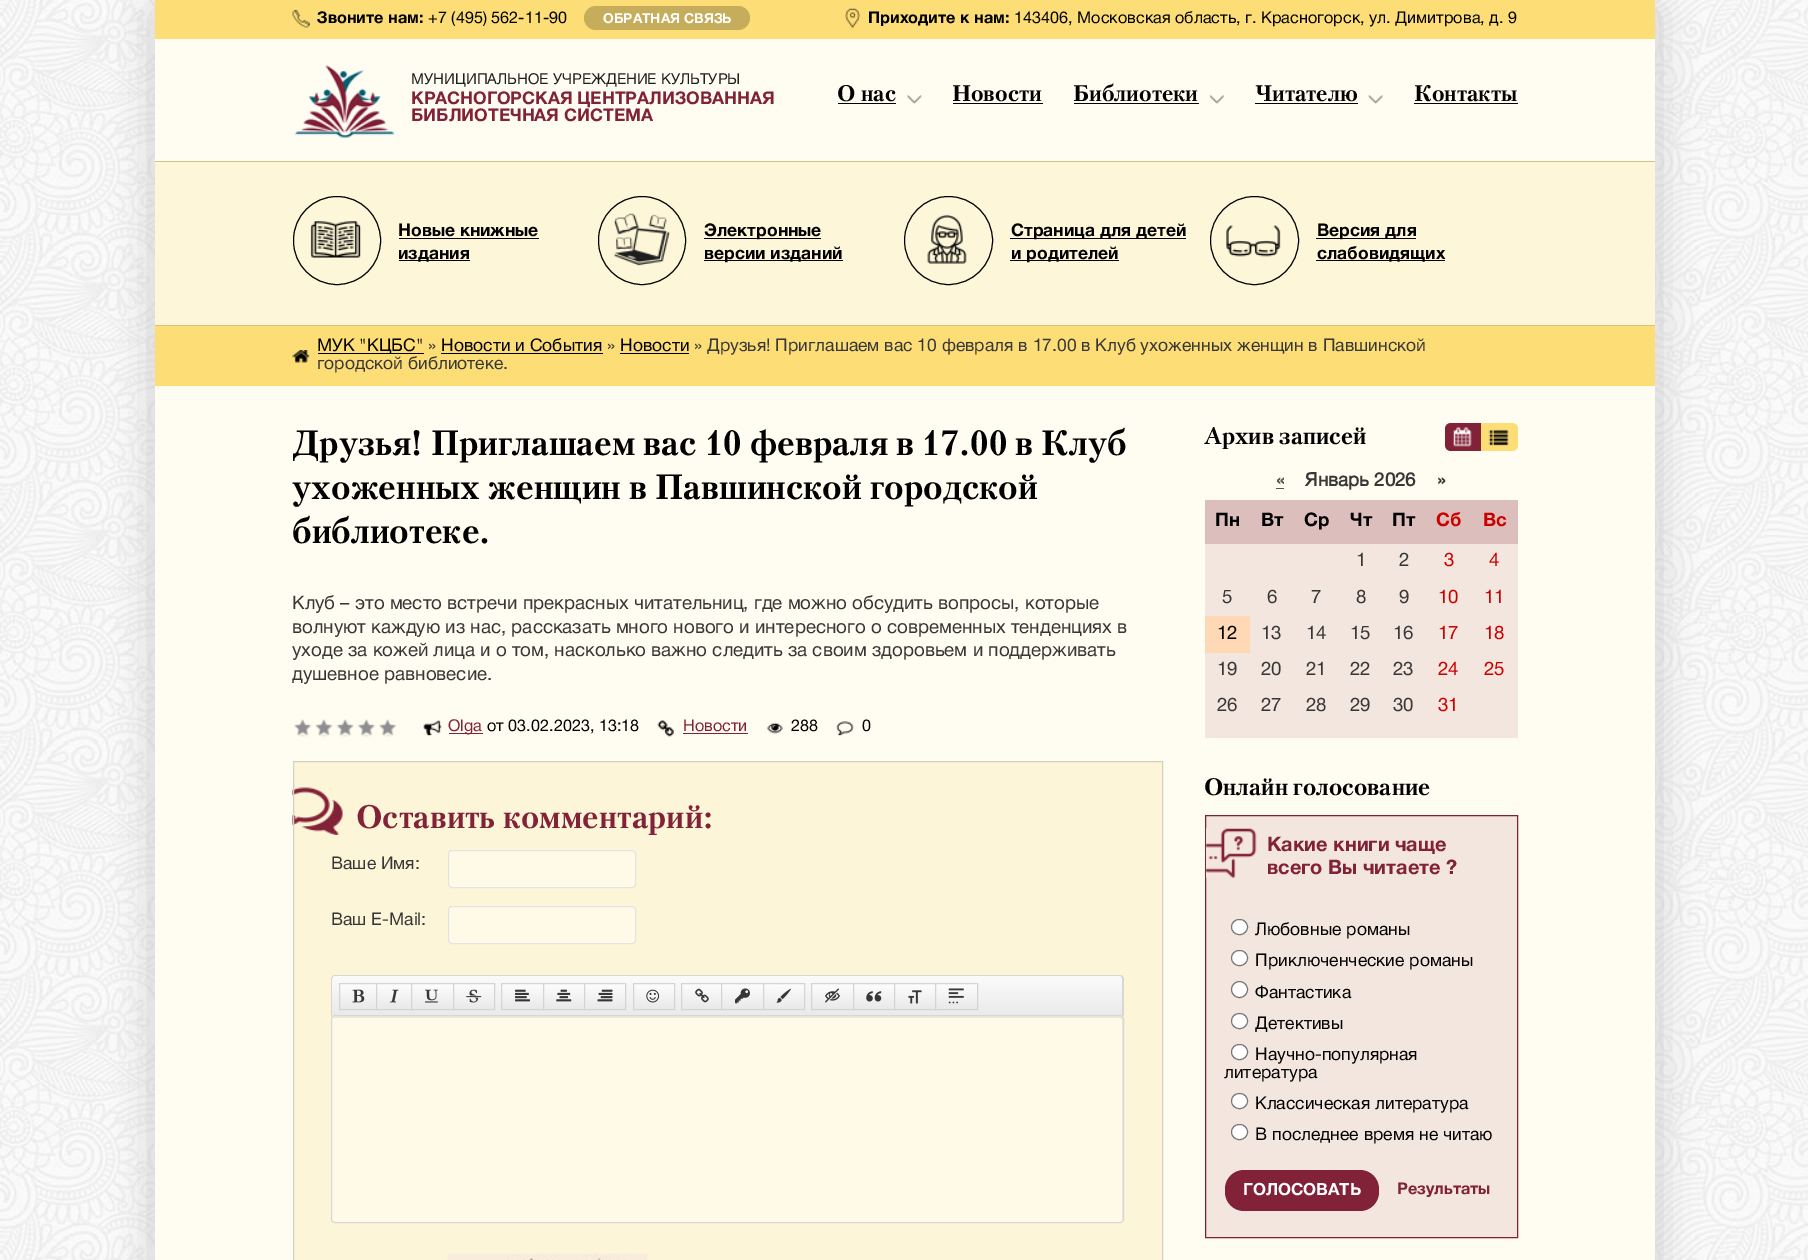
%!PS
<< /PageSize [1808 1260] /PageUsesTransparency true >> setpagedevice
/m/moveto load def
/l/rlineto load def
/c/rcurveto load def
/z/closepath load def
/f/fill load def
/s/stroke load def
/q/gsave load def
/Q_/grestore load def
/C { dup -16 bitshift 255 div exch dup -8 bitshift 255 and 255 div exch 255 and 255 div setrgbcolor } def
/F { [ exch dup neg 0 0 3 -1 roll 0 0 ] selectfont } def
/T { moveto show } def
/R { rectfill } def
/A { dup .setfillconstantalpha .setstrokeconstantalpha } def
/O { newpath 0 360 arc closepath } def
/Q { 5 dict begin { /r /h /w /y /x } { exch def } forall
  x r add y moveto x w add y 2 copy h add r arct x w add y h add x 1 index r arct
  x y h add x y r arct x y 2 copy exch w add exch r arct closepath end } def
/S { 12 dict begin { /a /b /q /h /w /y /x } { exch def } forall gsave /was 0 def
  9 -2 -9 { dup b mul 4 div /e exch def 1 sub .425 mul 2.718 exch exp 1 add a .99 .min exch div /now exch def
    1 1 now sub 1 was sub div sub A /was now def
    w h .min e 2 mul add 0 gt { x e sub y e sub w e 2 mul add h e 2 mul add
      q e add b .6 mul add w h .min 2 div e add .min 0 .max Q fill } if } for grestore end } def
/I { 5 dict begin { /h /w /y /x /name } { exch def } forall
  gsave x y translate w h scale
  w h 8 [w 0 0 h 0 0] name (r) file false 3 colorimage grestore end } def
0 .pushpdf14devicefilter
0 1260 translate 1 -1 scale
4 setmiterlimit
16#FFFFFF C
0 0 1808 1260 R
(1.rgb) 0 0 1808 1260 I
16#BFBFBF C
151 11 1508 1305 0 18.5 .75 S
16#FFFCF1 C
155 39 1500 1221 R
16#FCDD76 C
155 0 1500 39 R
(2.rgb) 292 9 18 19 I
/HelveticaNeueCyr-Bold 16.25 F
16#000000 C
(Звоните нам:) 317 23 T
/HelveticaNeueCyr-Regular 16.25 F
(+7 \(495\) 562-11-90) 428 23 T
16#C5AD5C C
584 6 166 24 12 Q f
/HelveticaNeueCyr-Bold 13.75 F
16#FFFFFF C
(ОБРАТНАЯ СВЯЗЬ) 603 23 T
(3.rgb) 845 8 16 20 I
/HelveticaNeueCyr-Bold 16.25 F
16#000000 C
(Приходите к нам:) 868 23 T
/HelveticaNeueCyr-Regular 16.25 F
(143406, Московская область, г. Красногорск, ул. Димитрова, д. 9) 1014 23 T
(4.rgb) 295 65 100 73 I
/HelveticaNeueCyr-Regular 15 F
16#1F1F1F C
(МУНИЦИПАЛЬНОЕ УЧРЕЖДЕНИЕ КУЛЬТУРЫ) 411 84 T
/HelveticaNeueCyr-Bold 17.5 F
16#822238 C
(КРАСНОГОРСКАЯ ЦЕНТРАЛИЗОВАННАЯ) 411 104 T
(БИБЛИОТЕЧНАЯ СИСТЕМА) 411 121 T
/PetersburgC-Bold 22.5 F
16#000000 C
(О нас) 837 101 T
838 103 58 1 R
(5.rgb) 907 95 15 9 I
(Новости) 952 101 T
953 103 90 1 R
(Библиотеки) 1073 101 T
1074 103 125 1 R
(6.rgb) 1210 95 14 9 I
(Читателю) 1255 101 T
1255 103 103 1 R
(7.rgb) 1368 95 15 9 I
(Контакты) 1414 101 T
1414 103 104 1 R
16#FEF6D8 C
155 162 1500 163 R
16#D4C284 C
155 161 1500 1 R
155 325 1500 1 R
16#000000 C
293.5 196.5 87 88 43.5 Q s
(8.rgb) 310 221 51 37 I
/HelveticaNeueCyr-Bold 17.5 F
(Новые книжные) 398 236 T
399 238 140 1 R
399 260 71 1 R
(издания) 398 259 T
598.5 196.5 87 88 43.5 Q s
(9.rgb) 613 213 57 53 I
704 238 117 1 R
(Электронные) 704 236 T
704 260 139 1 R
(версии изданий) 704 259 T
948.5 240.5 44 O s
(10.rgb) 927 214 40 50 I
1010 238 176 1 R
(Страница для детей) 1011 236 T
1010 260 109 1 R
(и родителей) 1011 259 T
1254.5 240.5 44 O s
(11.rgb) 1226 225 55 32 I
1316 238 100 1 R
(Версия для) 1317 236 T
1316 260 129 1 R
(слабовидящих) 1317 259 T
16#FCDD76 C
155 326 1500 60 R
(12.rgb) 292 350 18 13 I
16#000000 C
318 353 106 1 R
/HelveticaNeueCyr-Regular 17.5 F
(МУК "КЦБС") 317 351 T
16#373737 C
(») 428 351 T
16#000000 C
(Новости и События) 441 351 T
441 353 162 1 R
16#373737 C
(») 607 351 T
16#000000 C
(Новости) 620 351 T
620 353 69 1 R
16#373737 C
(» Друзья! Приглашаем вас 10 февраля в 17.00 в Клуб ухоженных женщин в Павшинской) 694 351 T
(городской библиотеке.) 317 369 T
/PetersburgC-Bold 35 F
16#000000 C
(Друзья! Приглашаем вас 10 февраля в 17.00 в Клуб) 292 455 T
(ухоженных женщин в Павшинской городской) 292 499 T
(библиотеке.) 292 543 T
/HelveticaNeueCyr-Regular 18.75 F
16#373737 C
(Клуб – это место встречи прекрасных читательниц, где можно обсудить вопросы, которые) 292 609 T
(волнуют каждую из нас, рассказать много нового и интересного о современных тенденциях в) 292 633 T
(уходе за кожей лица и о том, насколько важно следить за своим здоровьем и поддерживать) 292 656 T
(душевное равновесие.) 292 680 T
(13.rgb) 294 719 103 18 I
(14.rgb) 423 720 19 16 I
16#822238 C
449 733 34 1 R
/HelveticaNeueCyr-Regular 16.25 F
(Olga) 448 731 T
16#000000 C
(от 03.02.2023, 13:18) 487 731 T
(15.rgb) 657 720 17 17 I
16#822238 C
(Новости) 683 731 T
683 733 65 1 R
(16.rgb) 767 722 16 12 I
16#000000 C
(288) 791 731 T
(17.rgb) 836 721 18 15 I
(0) 862 731 T
16#FDF5D7 C
294 762 868 498 R
(18.rgb) 292 787 51 48 I
16#D5D1BF C
293.5 761.5 869 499 rectstroke
/PetersburgC-Bold 32.5 F
16#822238 C
(Оставить комментарий:) 356 828 T
/HelveticaNeueCyr-Regular 17.5 F
16#373737 C
(Ваше Имя:) 331 869 T
16#FFFAE8 C
448.5 850.5 187 37 3.5 Q q f Q_
16#E3E3E3 C
s
16#373737 C
(Ваш E-Mail:) 331 925 T
16#FFFAE8 C
448.5 906.5 187 37 3.5 Q q f Q_
16#E3E3E3 C
s
q
335 975 m 785 0 l 2 0 4 2 4 4 c 0 37 l -793 0 l 0 -37 l 0 -2 2 -4 4 -4 c z clip newpath
q 331 976 m 793 0 l 0 40 l -793 0 l z clip newpath
<< /ShadingType 2 /ColorSpace /DeviceRGB /Coords [728 976 728 1016] /Extend [true true] /Function << /FunctionType 2 /Domain [0 1] /C0 [.984 .984 .984] /C1 [.918 .918 .918] /N 1 >> >> shfill Q_
Q_
16#D7D7D7 C
335 975 m 785 0 l 2 0 4 2 4 4 c 0 37 l -793 0 l 0 -37 l 0 -2 2 -4 4 -4 c z 335 976 m 785 0 l 1 0 2 1 2 3 c 0 37 l -790 0 l 0 -37 l 0 -2 2 -3 3 -3 c z eofill
q 340 984 m 36 0 l 0 25 l -36 0 l z clip newpath
<< /ShadingType 2 /ColorSpace /DeviceRGB /Coords [358 984 358 1009] /Extend [true true] /Function << /FunctionType 2 /Domain [0 1] /C0 [.992 .992 .992] /C1 [.914 .914 .914] /N 1 >> >> shfill Q_
16#D4D4D4 C
339.5 983.5 38 26 rectstroke
(19.rgb) 352 989 13 14 I
q 377 984 m 34 0 l 0 25 l -34 0 l z clip newpath
<< /ShadingType 2 /ColorSpace /DeviceRGB /Coords [394 984 394 1009] /Extend [true true] /Function << /FunctionType 2 /Domain [0 1] /C0 [.992 .992 .992] /C1 [.914 .914 .914] /N 1 >> >> shfill Q_
376.5 983.5 36 26 rectstroke
(20.rgb) 390 989 9 14 I
q 412 984 m 41 0 l 0 25 l -41 0 l z clip newpath
<< /ShadingType 2 /ColorSpace /DeviceRGB /Coords [433 984 433 1009] /Extend [true true] /Function << /FunctionType 2 /Domain [0 1] /C0 [.992 .992 .992] /C1 [.914 .914 .914] /N 1 >> >> shfill Q_
411.5 983.5 42 26 rectstroke
(21.rgb) 425 989 13 14 I
q 454 984 m 40 0 l 0 25 l -40 0 l z clip newpath
<< /ShadingType 2 /ColorSpace /DeviceRGB /Coords [474 984 474 1009] /Extend [true true] /Function << /FunctionType 2 /Domain [0 1] /C0 [.992 .992 .992] /C1 [.914 .914 .914] /N 1 >> >> shfill Q_
453.5 983.5 41 26 rectstroke
(22.rgb) 466 989 16 14 I
q 502 984 m 41 0 l 0 25 l -41 0 l z clip newpath
<< /ShadingType 2 /ColorSpace /DeviceRGB /Coords [523 984 523 1009] /Extend [true true] /Function << /FunctionType 2 /Domain [0 1] /C0 [.992 .992 .992] /C1 [.914 .914 .914] /N 1 >> >> shfill Q_
501.5 983.5 42 26 rectstroke
(23.rgb) 515 989 15 13 I
q 544 984 m 40 0 l 0 25 l -40 0 l z clip newpath
<< /ShadingType 2 /ColorSpace /DeviceRGB /Coords [564 984 564 1009] /Extend [true true] /Function << /FunctionType 2 /Domain [0 1] /C0 [.992 .992 .992] /C1 [.914 .914 .914] /N 1 >> >> shfill Q_
543.5 983.5 41 26 rectstroke
(24.rgb) 556 989 16 13 I
q 585 984 m 40 0 l 0 25 l -40 0 l z clip newpath
<< /ShadingType 2 /ColorSpace /DeviceRGB /Coords [605 984 605 1009] /Extend [true true] /Function << /FunctionType 2 /Domain [0 1] /C0 [.992 .992 .992] /C1 [.914 .914 .914] /N 1 >> >> shfill Q_
584.5 983.5 41 26 rectstroke
(25.rgb) 597 989 16 13 I
q 634 984 m 40 0 l 0 25 l -40 0 l z clip newpath
<< /ShadingType 2 /ColorSpace /DeviceRGB /Coords [654 984 654 1009] /Extend [true true] /Function << /FunctionType 2 /Domain [0 1] /C0 [.992 .992 .992] /C1 [.914 .914 .914] /N 1 >> >> shfill Q_
633.5 983.5 41 26 rectstroke
(26.rgb) 646 989 14 14 I
q 682 984 m 39 0 l 0 25 l -39 0 l z clip newpath
<< /ShadingType 2 /ColorSpace /DeviceRGB /Coords [702 984 702 1009] /Extend [true true] /Function << /FunctionType 2 /Domain [0 1] /C0 [.992 .992 .992] /C1 [.914 .914 .914] /N 1 >> >> shfill Q_
681.5 983.5 41 26 rectstroke
(27.rgb) 695 988 14 15 I
q 722 984 m 41 0 l 0 25 l -41 0 l z clip newpath
<< /ShadingType 2 /ColorSpace /DeviceRGB /Coords [743 984 743 1009] /Extend [true true] /Function << /FunctionType 2 /Domain [0 1] /C0 [.992 .992 .992] /C1 [.914 .914 .914] /N 1 >> >> shfill Q_
721.5 983.5 42 26 rectstroke
(28.rgb) 735 988 15 16 I
q 764 984 m 40 0 l 0 25 l -40 0 l z clip newpath
<< /ShadingType 2 /ColorSpace /DeviceRGB /Coords [784 984 784 1009] /Extend [true true] /Function << /FunctionType 2 /Domain [0 1] /C0 [.992 .992 .992] /C1 [.914 .914 .914] /N 1 >> >> shfill Q_
763.5 983.5 41 26 rectstroke
(29.rgb) 776 988 15 15 I
q 812 984 m 41 0 l 0 25 l -41 0 l z clip newpath
<< /ShadingType 2 /ColorSpace /DeviceRGB /Coords [833 984 833 1009] /Extend [true true] /Function << /FunctionType 2 /Domain [0 1] /C0 [.992 .992 .992] /C1 [.914 .914 .914] /N 1 >> >> shfill Q_
811.5 983.5 42 26 rectstroke
(30.rgb) 825 988 15 15 I
q 854 984 m 40 0 l 0 25 l -40 0 l z clip newpath
<< /ShadingType 2 /ColorSpace /DeviceRGB /Coords [874 984 874 1009] /Extend [true true] /Function << /FunctionType 2 /Domain [0 1] /C0 [.992 .992 .992] /C1 [.914 .914 .914] /N 1 >> >> shfill Q_
853.5 983.5 41 26 rectstroke
(31.rgb) 866 991 16 11 I
q 895 984 m 40 0 l 0 25 l -40 0 l z clip newpath
<< /ShadingType 2 /ColorSpace /DeviceRGB /Coords [915 984 915 1009] /Extend [true true] /Function << /FunctionType 2 /Domain [0 1] /C0 [.992 .992 .992] /C1 [.914 .914 .914] /N 1 >> >> shfill Q_
894.5 983.5 41 26 rectstroke
(32.rgb) 908 990 14 14 I
q 936 984 m 41 0 l 0 25 l -41 0 l z clip newpath
<< /ShadingType 2 /ColorSpace /DeviceRGB /Coords [956 984 956 1009] /Extend [true true] /Function << /FunctionType 2 /Domain [0 1] /C0 [.992 .992 .992] /C1 [.914 .914 .914] /N 1 >> >> shfill Q_
935.5 983.5 42 26 rectstroke
(33.rgb) 948 988 16 16 I
16#FFFAE8 C
331 1015 793 208 4 Q f
16#ECE7D7 C
335 1018 m 785 0 l 2 1 l 0 202 l 1 -1 1 -2 1 -3 c 0 -200 l 0 -1 -1 -2 -3 -2 c -784 0 l -2 0 -3 1 -3 2 c z f
16#D7D7D7 C
331.5 1015.5 792 207 3.5 Q s
(34.rgb) 447 1253 201 7 I
/PetersburgC-Bold 23.75 F
16#000000 C
(Архив записей) 1204 444 T
16#822238 C
1451 423 m 30 0 l 0 28 l -30 0 l -3.5 0 -6 -2.5 -6 -6 c 0 -16 l 0 -3.5 2.5 -6 6 -6 c z f
(35.rgb) 1453 427 19 20 I
16#FCDD76 C
1481 423 m 31 0 l 3.5 0 6 2.5 6 6 c 0 16 l 0 3.5 -2.5 6 -6 6 c -31 0 l z f
(36.rgb) 1488 429 21 17 I
16#F2E6DE C
1205 544 313 194 R
/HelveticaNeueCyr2-Bold 18.75 F
16#535353 C
(«) 1276 486 T
1276 488 8 1 R
16#373737 C
(Январь 2026    ») 1305 486 T
16#DCBFBD C
1205 500 313 44 R
/HelveticaNeueCyr-Bold 18.75 F
16#000000 C
(Пн) 1215 526 T
(Вт) 1261 526 T
(Ср) 1304 526 T
(Чт) 1350 526 T
(Пт) 1392 526 T
16#CD0000 C
(Сб) 1436 526 T
(Вс) 1483 526 T
/HelveticaNeueCyr-Regular 18.75 F
16#373737 C
(1) 1356 566 T
(2) 1399 566 T
16#CD0000 C
(3) 1444 566 T
(4) 1489 566 T
16#373737 C
(5) 1222 603 T
(6) 1267 603 T
(7) 1311 603 T
(8) 1356 603 T
(9) 1399 603 T
16#CD0000 C
(10) 1438 603 T
(11) 1484 603 T
16#FFD8B5 C
1205 616 45 37 R
16#000000 C
(12) 1217 639 T
16#373737 C
(13) 1261 639 T
(14) 1306 639 T
(15) 1350 639 T
(16) 1393 639 T
16#CD0000 C
(17) 1438 639 T
(18) 1484 639 T
16#373737 C
(19) 1217 675 T
(20) 1261 675 T
(21) 1306 675 T
(22) 1350 675 T
(23) 1393 675 T
16#CD0000 C
(24) 1438 675 T
(25) 1484 675 T
16#373737 C
(26) 1217 711 T
(27) 1261 711 T
(28) 1306 711 T
(29) 1350 711 T
(30) 1393 711 T
16#CD0000 C
(31) 1438 711 T
/PetersburgC-Bold 23.75 F
16#000000 C
(Онлайн голосование) 1204 795 T
16#F2E6DE C
1205.5 815.5 m 312 0 l 0 422 l -312 0 l z q f Q_
16#812137 C
s
(37.rgb) 1206 828 51 50 I
/HelveticaNeueCyr-Bold 20 F
16#822238 C
(Какие книги чаще) 1267 851 T
(всего Вы читаете ?) 1267 874 T
16#FFFFFF C
1231.5 919.5 16 15 7.5 Q q f Q_
16#767676 C
s
/HelveticaNeueCyr-Regular 17.5 F
16#000000 C
(Любовные романы) 1255 935 T
16#FFFFFF C
1231.5 950.5 16 15 7.5 Q q f Q_
16#767676 C
s
16#000000 C
(Приключенческие романы) 1255 966 T
16#FFFFFF C
1239.5 989.5 8 O q f Q_
16#767676 C
s
16#000000 C
(Фантастика) 1255 998 T
16#FFFFFF C
1231.5 1013.5 16 15 7.5 Q q f Q_
16#767676 C
s
16#000000 C
(Детективы) 1255 1029 T
16#FFFFFF C
1231.5 1044.5 16 15 7.5 Q q f Q_
16#767676 C
s
16#000000 C
(Научно-популярная) 1255 1060 T
(литература) 1224 1078 T
16#FFFFFF C
1231.5 1093.5 16 15 7.5 Q q f Q_
16#767676 C
s
16#000000 C
(Классическая литература) 1255 1109 T
16#FFFFFF C
1231.5 1124.5 16 15 7.5 Q q f Q_
16#767676 C
s
16#000000 C
(В последнее время не читаю) 1255 1140 T
16#822238 C
1225 1170 154 41 19 Q f
/HelveticaNeueCyr-Bold 16.75 F
16#FFFFFF C
(ГОЛОСОВАТЬ) 1243 1195 T
/HelveticaNeueCyr-Bold 16.25 F
16#822238 C
(Результаты) 1397 1194 T
.poppdf14devicefilter showpage
